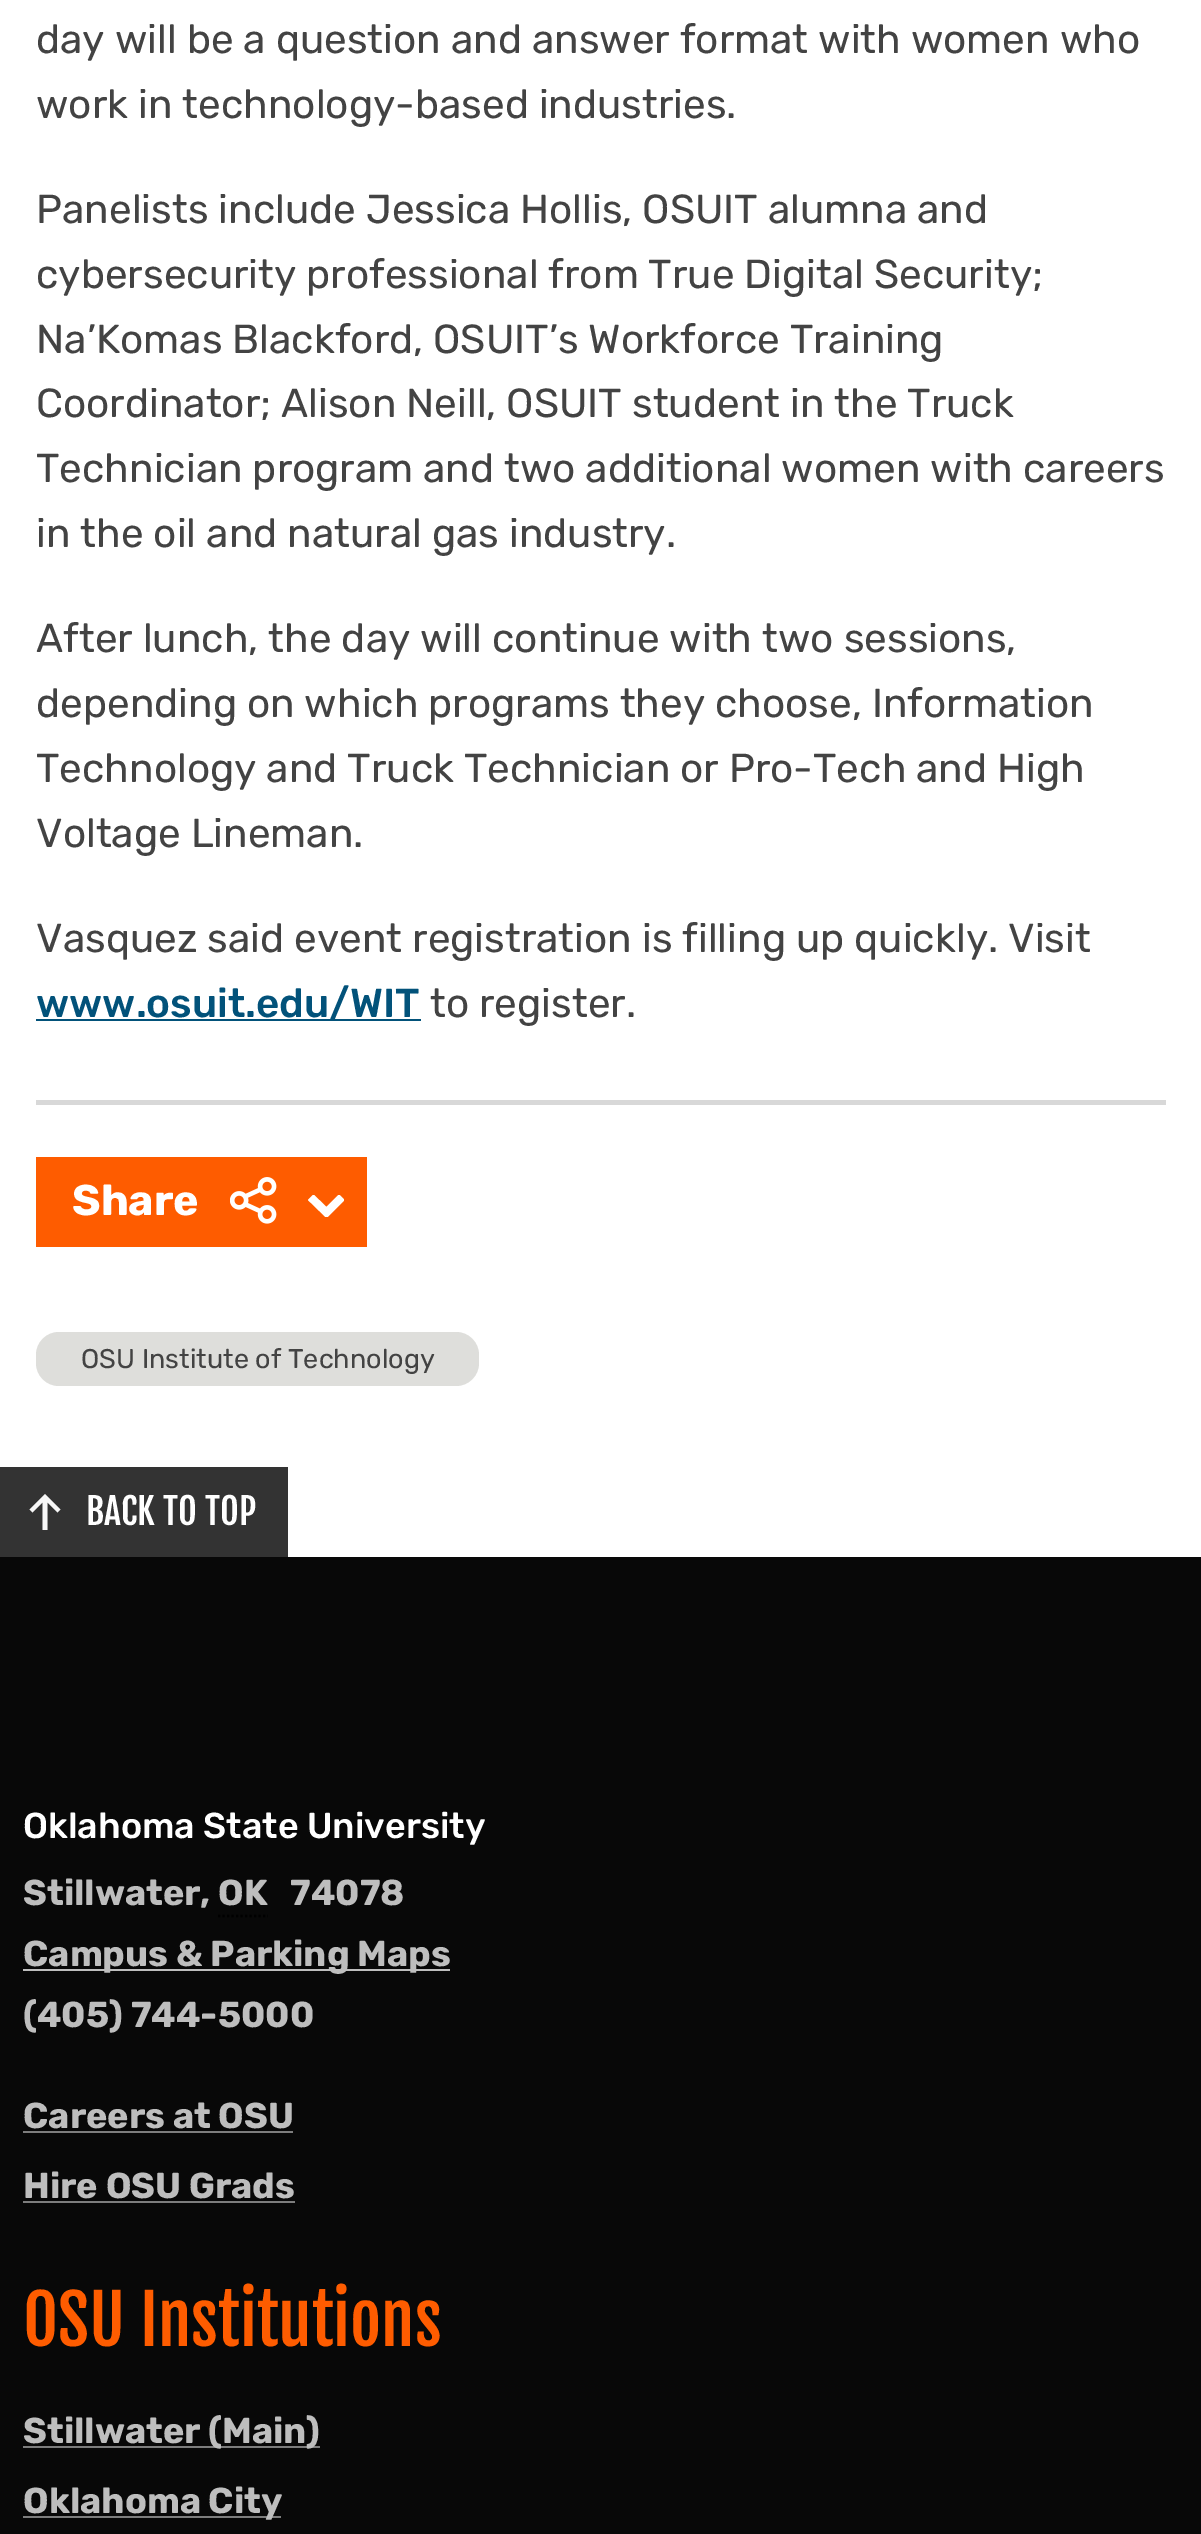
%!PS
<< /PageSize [1201 2534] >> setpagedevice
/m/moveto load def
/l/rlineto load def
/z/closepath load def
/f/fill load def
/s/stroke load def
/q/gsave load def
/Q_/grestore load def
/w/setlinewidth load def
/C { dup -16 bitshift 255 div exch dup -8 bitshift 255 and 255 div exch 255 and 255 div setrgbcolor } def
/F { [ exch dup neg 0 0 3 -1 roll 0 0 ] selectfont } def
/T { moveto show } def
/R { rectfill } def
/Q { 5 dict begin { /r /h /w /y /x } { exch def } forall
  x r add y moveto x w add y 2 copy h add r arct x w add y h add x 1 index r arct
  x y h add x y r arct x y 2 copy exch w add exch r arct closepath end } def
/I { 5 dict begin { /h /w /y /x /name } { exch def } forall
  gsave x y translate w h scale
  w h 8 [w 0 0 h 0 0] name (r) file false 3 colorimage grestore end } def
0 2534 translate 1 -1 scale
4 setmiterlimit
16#FFFFFF C
0 0 1201 2534 R
/Rubik-Regular 40.5 F
16#434343 C
(day will be a question and answer format with women who) 36 53 T
(work in technology-based industries.) 36 118 T
(Panelists include Jessica Hollis, OSUIT alumna and) 36 223 T
(cybersecurity professional from True Digital Security;) 36 288 T
(Na’Komas Blackford, OSUIT’s Workforce Training) 36 353 T
(Coordinator; Alison Neill, OSUIT student in the Truck) 36 417 T
(Technician program and two additional women with careers) 36 482 T
(in the oil and natural gas industry.) 36 547 T
(After lunch, the day will continue with two sessions,) 36 652 T
(depending on which programs they choose, Information) 36 717 T
(Technology and Truck Technician or Pro-Tech and High) 36 782 T
(Voltage Lineman.) 36 847 T
(Vasquez said event registration is filling up quickly. Visit) 36 952 T
16#02527A C
36 1019 385 2 R
/Rubik-Medium 40.5 F
(www.osuit.edu/WIT) 36 1017 T
/Rubik-Regular 40.5 F
16#434343 C
(to register.) 430 1017 T
16#D8D8D8 C
36 1100 1130 5 R
16#FE5C00 C
36 1157 331 90 R
/Rubik-Bold 43 F
16#FFFFFF C
(Share) 72 1215 T
(1.rgb) 230 1177 47 47 I
313.5 1196 m 13 12.5 l 12.5 -12.5 l 4 4 l -16.5 16.5 l -17 -16.5 l z eofill
q
308 1195 36 22 rectclip
2.2 w
313.5 1196 m 13 12.5 l 12.5 -12.5 l 4 4 l -16.5 16.5 l -17 -16.5 l z s
Q_
16#DEDEDB C
36 1332 443 54 23 Q f
/Rubik-Regular 27 F
16#434343 C
(OSU Institute of Technology) 81 1368 T
16#333333 C
0 1467 288 90 R
16#F7F7F7 C
47.5 1502.5 m 0 27.5 l -5 0 l 0 -27.5 l -10 10 l -3 -3 l 15.5 -15.5 l 15.5 15.5 l -3 3 l z f
/FjallaOne-Regular 36 F
16#FFFFFF C
(BACK TO TOP) 86 1525 T
16#080808 C
0 1557 1201 977 R
/Rubik-Medium 36 F
16#FFFFFF C
(Oklahoma State University) 23 1838 T
/Rubik-Bold 36 F
16#BEBEBE C
(Stillwater, OK) 23 1905 T
(74078) 290 1905 T
16#000000 C
2.2 w
[2.25 2.25] 0 setdash
218 1916 m 50 0 l s
16#BEBEBE C
23 1969 427 2 R
(Campus & Parking Maps) 23 1966 T
(\(405\) 744-5000) 23 2027 T
(Careers at OSU) 23 2128 T
16#7D7D7D C
23 2131 270 2 R
16#BEBEBE C
(Hire OSU Grads) 23 2198 T
16#7D7D7D C
23 2201 272 2 R
/FjallaOne-Regular 67.5 F
16#FE5C00 C
(OSU Institutions) 23 2346 T
16#7D7D7D C
23 2446 297 2 R
/Rubik-Bold 36 F
16#BEBEBE C
(Stillwater \(Main\)) 23 2443 T
16#7D7D7D C
23 2516 258 2 R
16#BEBEBE C
(Oklahoma City) 23 2513 T
showpage
